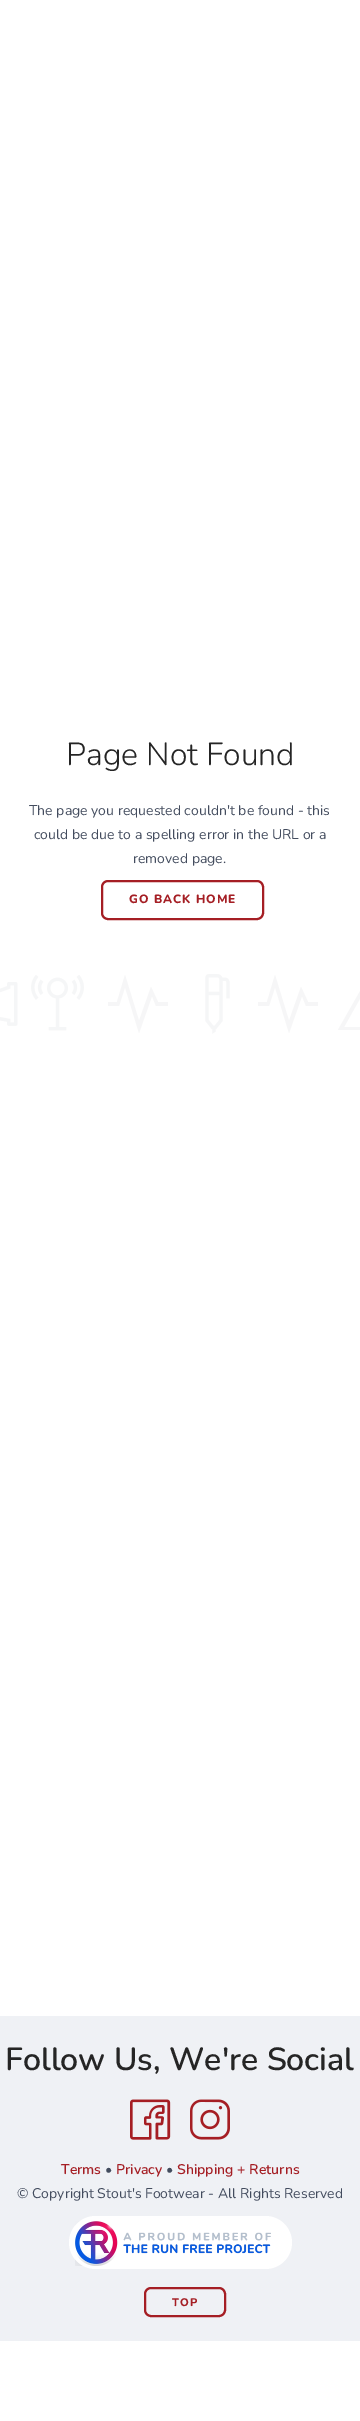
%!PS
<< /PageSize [360 2421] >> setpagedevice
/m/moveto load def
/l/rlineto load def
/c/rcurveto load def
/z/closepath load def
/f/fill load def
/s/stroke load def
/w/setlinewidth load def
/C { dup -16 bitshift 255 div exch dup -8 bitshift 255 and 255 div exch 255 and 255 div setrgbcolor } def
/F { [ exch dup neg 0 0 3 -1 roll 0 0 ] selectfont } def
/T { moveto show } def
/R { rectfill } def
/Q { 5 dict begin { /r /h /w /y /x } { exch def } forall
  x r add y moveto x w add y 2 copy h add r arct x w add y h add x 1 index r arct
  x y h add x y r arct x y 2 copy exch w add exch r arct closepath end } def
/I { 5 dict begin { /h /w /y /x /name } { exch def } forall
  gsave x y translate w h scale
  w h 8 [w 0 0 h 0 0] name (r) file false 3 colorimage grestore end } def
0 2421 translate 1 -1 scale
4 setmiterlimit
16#FFFFFF C
0 0 360 2421 R
/Nunito-Light 32 F
16#252525 C
(Page Not Found) 66 765 T
/Nunito-Regular 14 F
16#434C5E C
(The page you requested couldn't be found - this) 29 815 T
(could be due to a spelling error in the URL or a) 34 839 T
(removed page.) 133 863 T
16#A51E24 C
2 w
102 881 161 38 6 Q s
/Nunito-ExtraBold 12 F
129 903 m 1 0 (GO BACK HOME) ashow
(1.rgb) 0 982 18 44 I
(2.rgb) 31 975 53 56 I
16#F6F6F7 C
158 1002 m -7 -15 l -12 34 l -14 -46 l -8 27 l -9 0 l 0 4 l 11 0 l 6 -19 l 14 46 l 13 -37 l 4 10 l 12 0 l 0 -4 l z f
(3.rgb) 205 974 25 60 I
308 1002 m -7 -15 l -12 34 l -14 -46 l -8 27 l -9 0 l 0 4 l 11 0 l 6 -19 l 14 46 l 13 -37 l 4 10 l 12 0 l 0 -4 l z f
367 979 m -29 51 l 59 0 l z 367 986 m 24 41 l -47 0 l z 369 1013 m -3 0 l 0 -14 l 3 0 l z 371 1020 m 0 5 -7 5 -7 0 c 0 -5 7 -5 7 0 c z f
16#EFF1F5 C
0 2016 360 325 R
/Nunito-SemiBold 32 F
16#252525 C
(Follow Us, We're Social) 5 2070 T
(4.rgb) 130 2099 41 41 I
(5.rgb) 190 2099 40 41 I
/Nunito-SemiBold 14 F
16#A51E24 C
(Terms) 61 2174 T
/Nunito-Regular 14 F
16#434C5E C
(•) 105 2174 T
/Nunito-SemiBold 14 F
16#A51E24 C
(Privacy) 116 2174 T
/Nunito-Regular 14 F
16#434C5E C
(•) 166 2174 T
/Nunito-SemiBold 14 F
16#A51E24 C
(Shipping + Returns) 177 2174 T
/Nunito-Regular 14 F
16#434C5E C
(© Copyright Stout's Footwear - All Rights Reserved) 17 2198 T
16#FFFFFF C
69 2216 223 53 26.5 Q f
(6.rgb) 75 2221 196 45 I
16#A51E24 C
145 2288 80 28 6 Q s
/Nunito-ExtraBold 11 F
172 2306 m 1 0 (TOP) ashow
showpage
